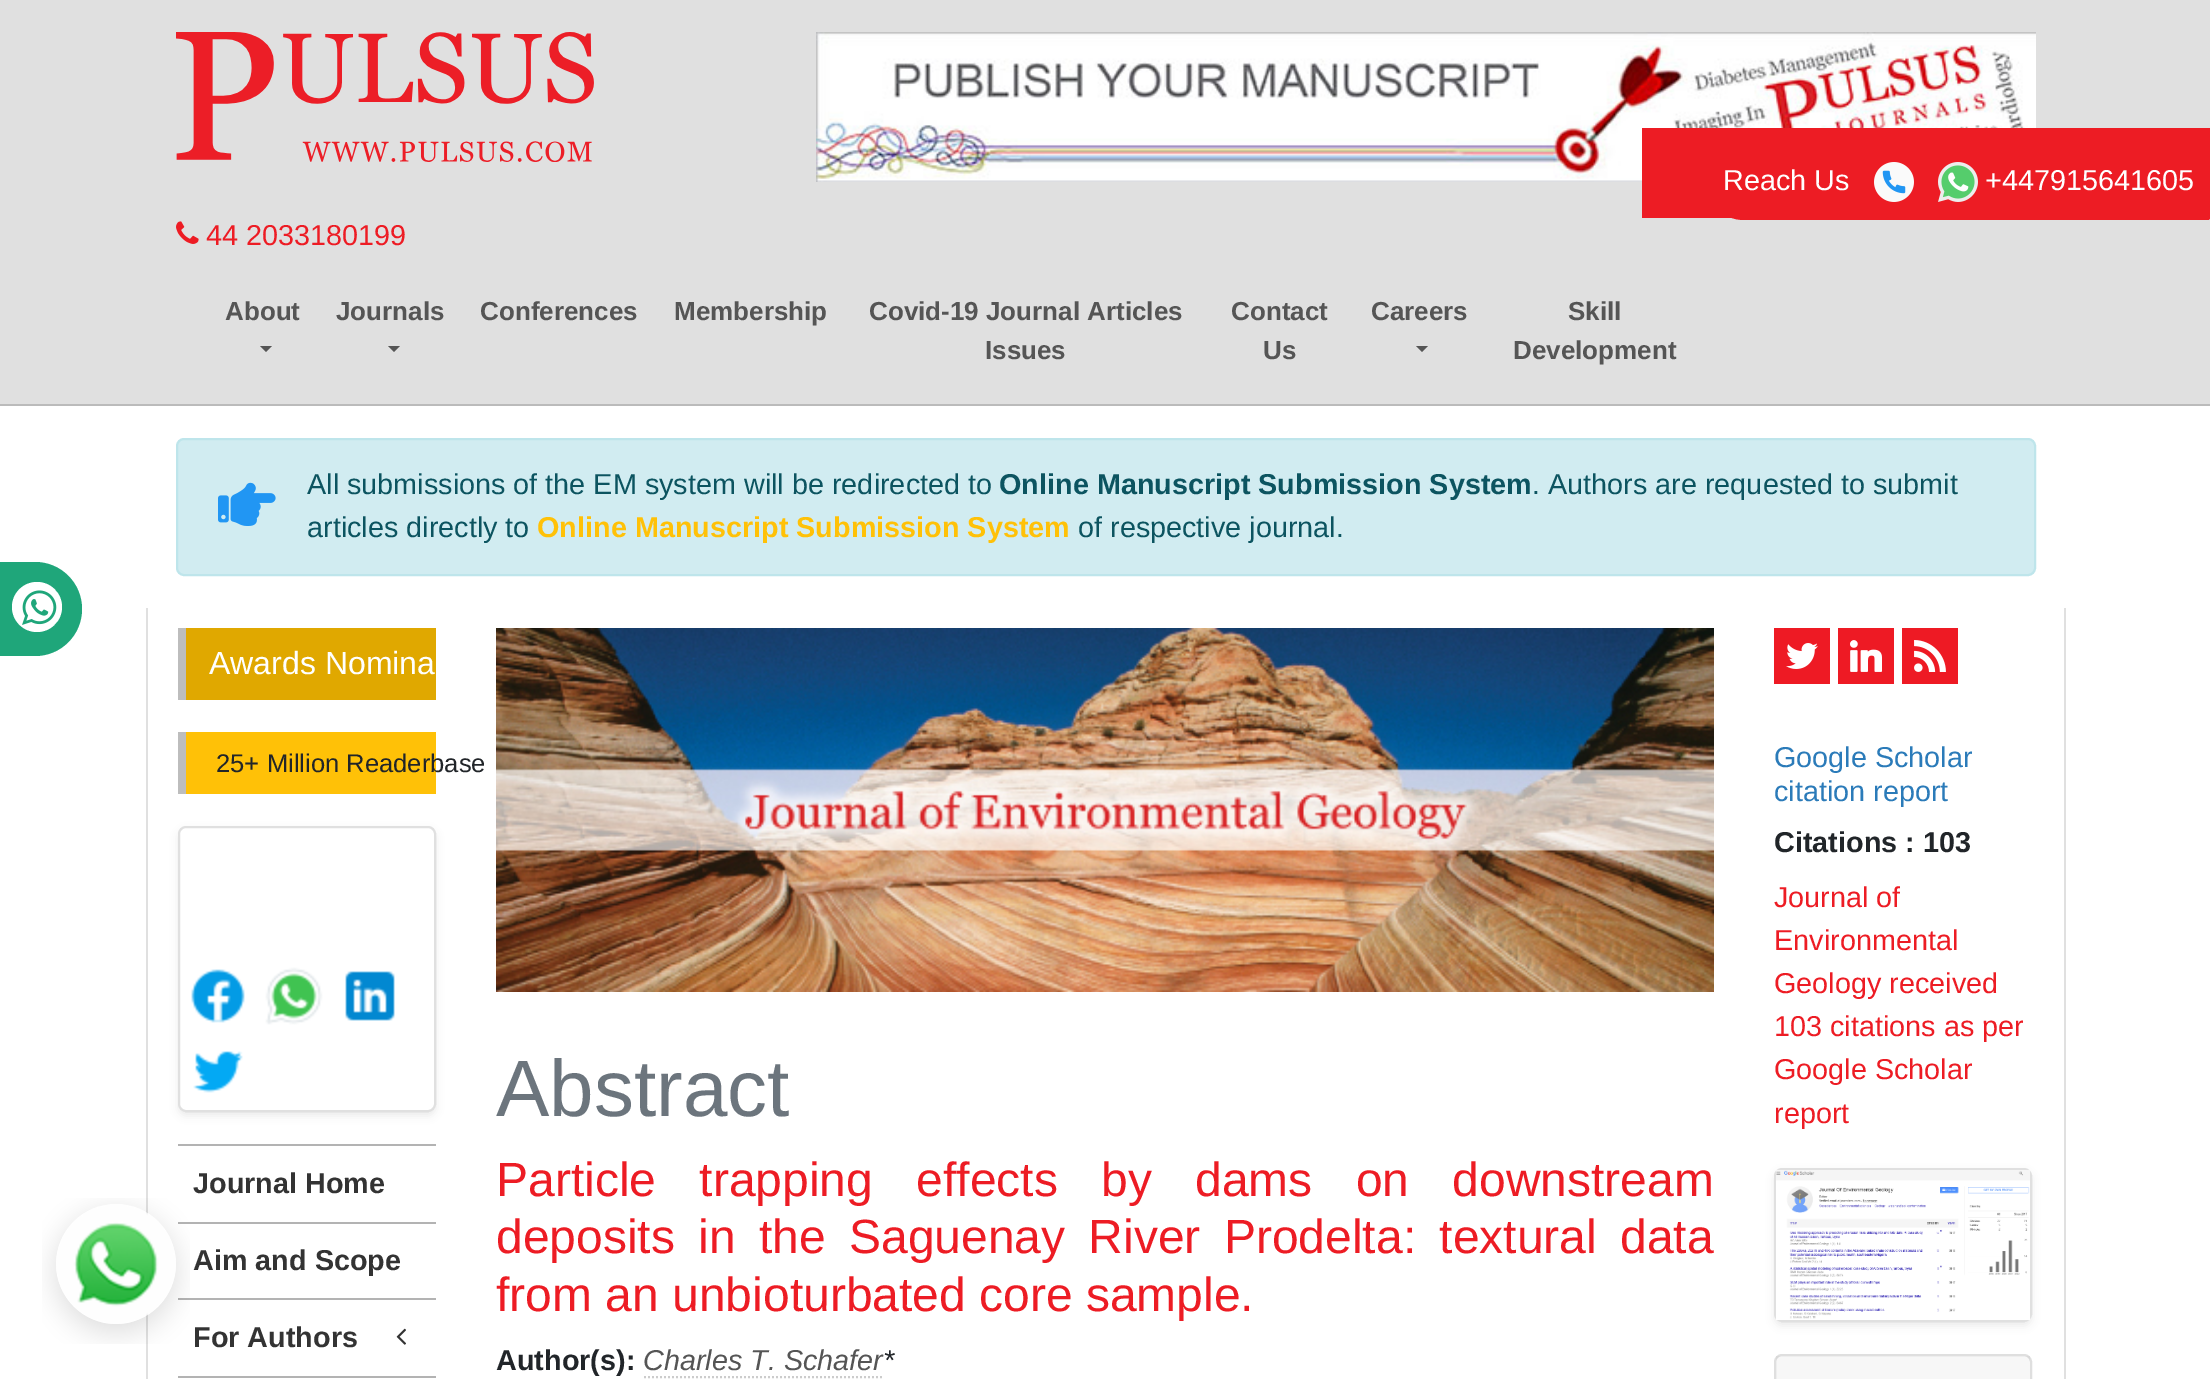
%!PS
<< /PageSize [2210 1379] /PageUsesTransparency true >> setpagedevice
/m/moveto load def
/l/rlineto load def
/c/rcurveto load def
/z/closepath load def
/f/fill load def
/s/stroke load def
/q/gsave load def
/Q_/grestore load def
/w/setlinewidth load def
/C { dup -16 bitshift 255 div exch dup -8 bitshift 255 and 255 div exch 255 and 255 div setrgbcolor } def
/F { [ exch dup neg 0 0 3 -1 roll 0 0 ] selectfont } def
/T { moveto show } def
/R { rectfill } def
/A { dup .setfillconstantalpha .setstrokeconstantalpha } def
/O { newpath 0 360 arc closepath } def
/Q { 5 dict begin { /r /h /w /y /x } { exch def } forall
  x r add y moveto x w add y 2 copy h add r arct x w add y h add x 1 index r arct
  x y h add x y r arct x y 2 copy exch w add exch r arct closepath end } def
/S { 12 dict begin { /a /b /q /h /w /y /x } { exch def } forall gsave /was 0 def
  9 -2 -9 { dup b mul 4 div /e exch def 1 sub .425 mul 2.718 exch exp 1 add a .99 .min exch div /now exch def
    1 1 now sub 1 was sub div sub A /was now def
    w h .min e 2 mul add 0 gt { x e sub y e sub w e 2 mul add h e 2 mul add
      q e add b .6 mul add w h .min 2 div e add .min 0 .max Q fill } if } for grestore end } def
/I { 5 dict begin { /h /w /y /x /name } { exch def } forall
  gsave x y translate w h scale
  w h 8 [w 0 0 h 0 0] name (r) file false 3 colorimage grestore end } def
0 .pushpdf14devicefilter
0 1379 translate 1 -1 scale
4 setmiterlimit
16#FFFFFF C
0 0 2210 1379 R
16#E0E0E0 C
0 0 2210 404 R
(4.rgb) 816 32 1220 150 I
16#ED1C24 C
1744 144 m 464 0 l 1 0 2 1 2 2 c 0 72 l 0 1 -1 2 -2 2 c -464 0 l -21 0 -38 -17 -38 -38 c 0 -21 17 -38 38 -38 c z f
1642 128 568 90 R
/LiberationSans-Regular 28.8 F
16#FFFFFF C
(Reach Us) 1723 190 T
(1.rgb) 1874 162 40 40 I
(2.rgb) 1938 162 40 40 I
(+447915641605) 1985 190 T
16#BBBBBB C
0 404 2210 2 R
(3.rgb) 176 32 418 130 I
(5.rgb) 176 221 23 23 I
16#ED1C24 C
(44 2033180199) 206 245 T
/LiberationSans-Bold 26 F
16#555555 C
(About) 225 320 T
260 346 m 12 0 l -6 6 l z f
(Journals) 336 320 T
388 346 m 12 0 l -6 6 l z f
(Conferences) 480 320 T
(Membership) 674 320 T
(Covid-19 Journal Articles) 869 320 T
(Issues) 985 359 T
(Contact) 1231 320 T
(Us) 1263 359 T
(Careers) 1371 320 T
1416 346 m 12 0 l -6 6 l z f
(Skill) 1568 320 T
(Development) 1513 359 T
16#1FA67A C
-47 562 m 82 0 l 26 0 47 21 47 47 c 0 26 -21 47 -47 47 c -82 0 l z f
16#FFFFFF C
37 607 25 O f
(6.rgb) 22 590 35 35 I
16#D1ECF1 C
177 439 1858 136 7 Q q f Q_
16#BEE5EB C
2 w
s
(7.rgb) 218 482 58 44 I
/LiberationSans-Regular 28.8 F
16#0C5460 C
(All submissions of the EM system will be redirected to) 307 494 T
/LiberationSans-Bold 28.8 F
(Online Manuscript Submission System) 999 494 T
/LiberationSans-Regular 28.8 F
(. Authors are requested to submit) 1532 494 T
(articles directly to) 307 537 T
/LiberationSans-Bold 28.8 F
16#FFC107 C
(Online Manuscript Submission System) 537 537 T
/LiberationSans-Regular 28.8 F
16#0C5460 C
(of respective journal.) 1078 537 T
16#E0E0E0 C
146 608 2 771 R
16#B3B3B3 C
178 1222 258 2 R
178 1298 258 2 R
(8.rgb) 42 1198 148 146 I
16#E0E0E0 C
2064 608 2 771 R
16#E0A800 C
186 628 250 72 R
16#BDBDBD C
178 628 8 72 R
/LiberationSans-Regular 32 F
16#FFFFFF C
(Awards Nomina) 209 674 T
16#FFC107 C
186 732 250 62 R
16#BDBDBD C
178 732 8 62 R
/LiberationSans-Regular 25.6 F
16#212529 C
(25+ Million Readerbase) 216 772 T
16#000000 C
178 830 258 286 8 4 .07 S
16#FFFFFF C
178 826 258 286 8 Q f
0.12 A
16#000000 C
179 827 256 284 7 Q s
1 A
(9.rgb) 191 969 54 54 I
(10.rgb) 265 967 58 58 I
(11.rgb) 345 971 50 50 I
(12.rgb) 193 1051 50 42 I
16#B3B3B3 C
178 1144 258 2 R
/LiberationSans-Bold 28.8 F
16#333333 C
(Journal Home) 193 1193 T
(Aim and Scope) 193 1270 T
(For Authors) 193 1347 T
(13.rgb) 396 1328 10 17 I
16#B3B3B3 C
178 1376 258 2 R
16#EE1A24 C
1774 628 56 56 R
(14.rgb) 1786 643 32 26 I
1838 628 56 56 R
(15.rgb) 1850 640 32 32 I
1902 628 56 56 R
(16.rgb) 1914 640 32 32 I
/LiberationSans-Regular 28.8 F
16#2B7BB9 C
(Google Scholar) 1774 767 T
(citation report) 1774 801 T
/LiberationSans-Bold 28.8 F
16#212529 C
(Citations : 103) 1774 852 T
/LiberationSans-Regular 28.8 F
16#ED1C24 C
(Journal of) 1774 907 T
(Environmental) 1774 950 T
(Geology received) 1774 993 T
(103 citations as per) 1774 1036 T
(Google Scholar) 1774 1079 T
(report) 1774 1123 T
16#000000 C
1774 1172 258 154 8 4 .07 S
16#FFFFFF C
1774 1168 258 154 8 Q f
0.12 A
16#000000 C
1775 1169 256 152 7 Q s
1 A
(17.rgb) 1776 1170 254 150 I
16#DFDFDF C
1775 1355 256 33 7 Q s
0.03 A
16#000000 C
1776 1356 254 23 R
1 A
(18.rgb) 496 628 1218 364 I
/LiberationSans-Regular 80 F
16#6C757D C
(Abstract) 496 1116 T
/LiberationSans-Regular 48 F
16#ED1C24 C
496 1196 m 30 0 32 (Particle trapping effects by dams on downstream) widthshow
496 1253 m 10 0 32 (deposits in the Saguenay River Prodelta: textural data) widthshow
(from an unbioturbated core sample.) 496 1311 T
/LiberationSans-Bold 28.8 F
16#212529 C
(Author\(s\):) 496 1370 T
/LiberationSans-Italic 28.8 F
16#555555 C
(Charles T. Schafer) 643 1370 T
16#CCCCCC C
[2 2] 0 setdash
644 1377 m 240 0 l s
16#212529 C
(*) 883 1370 T
.poppdf14devicefilter showpage
